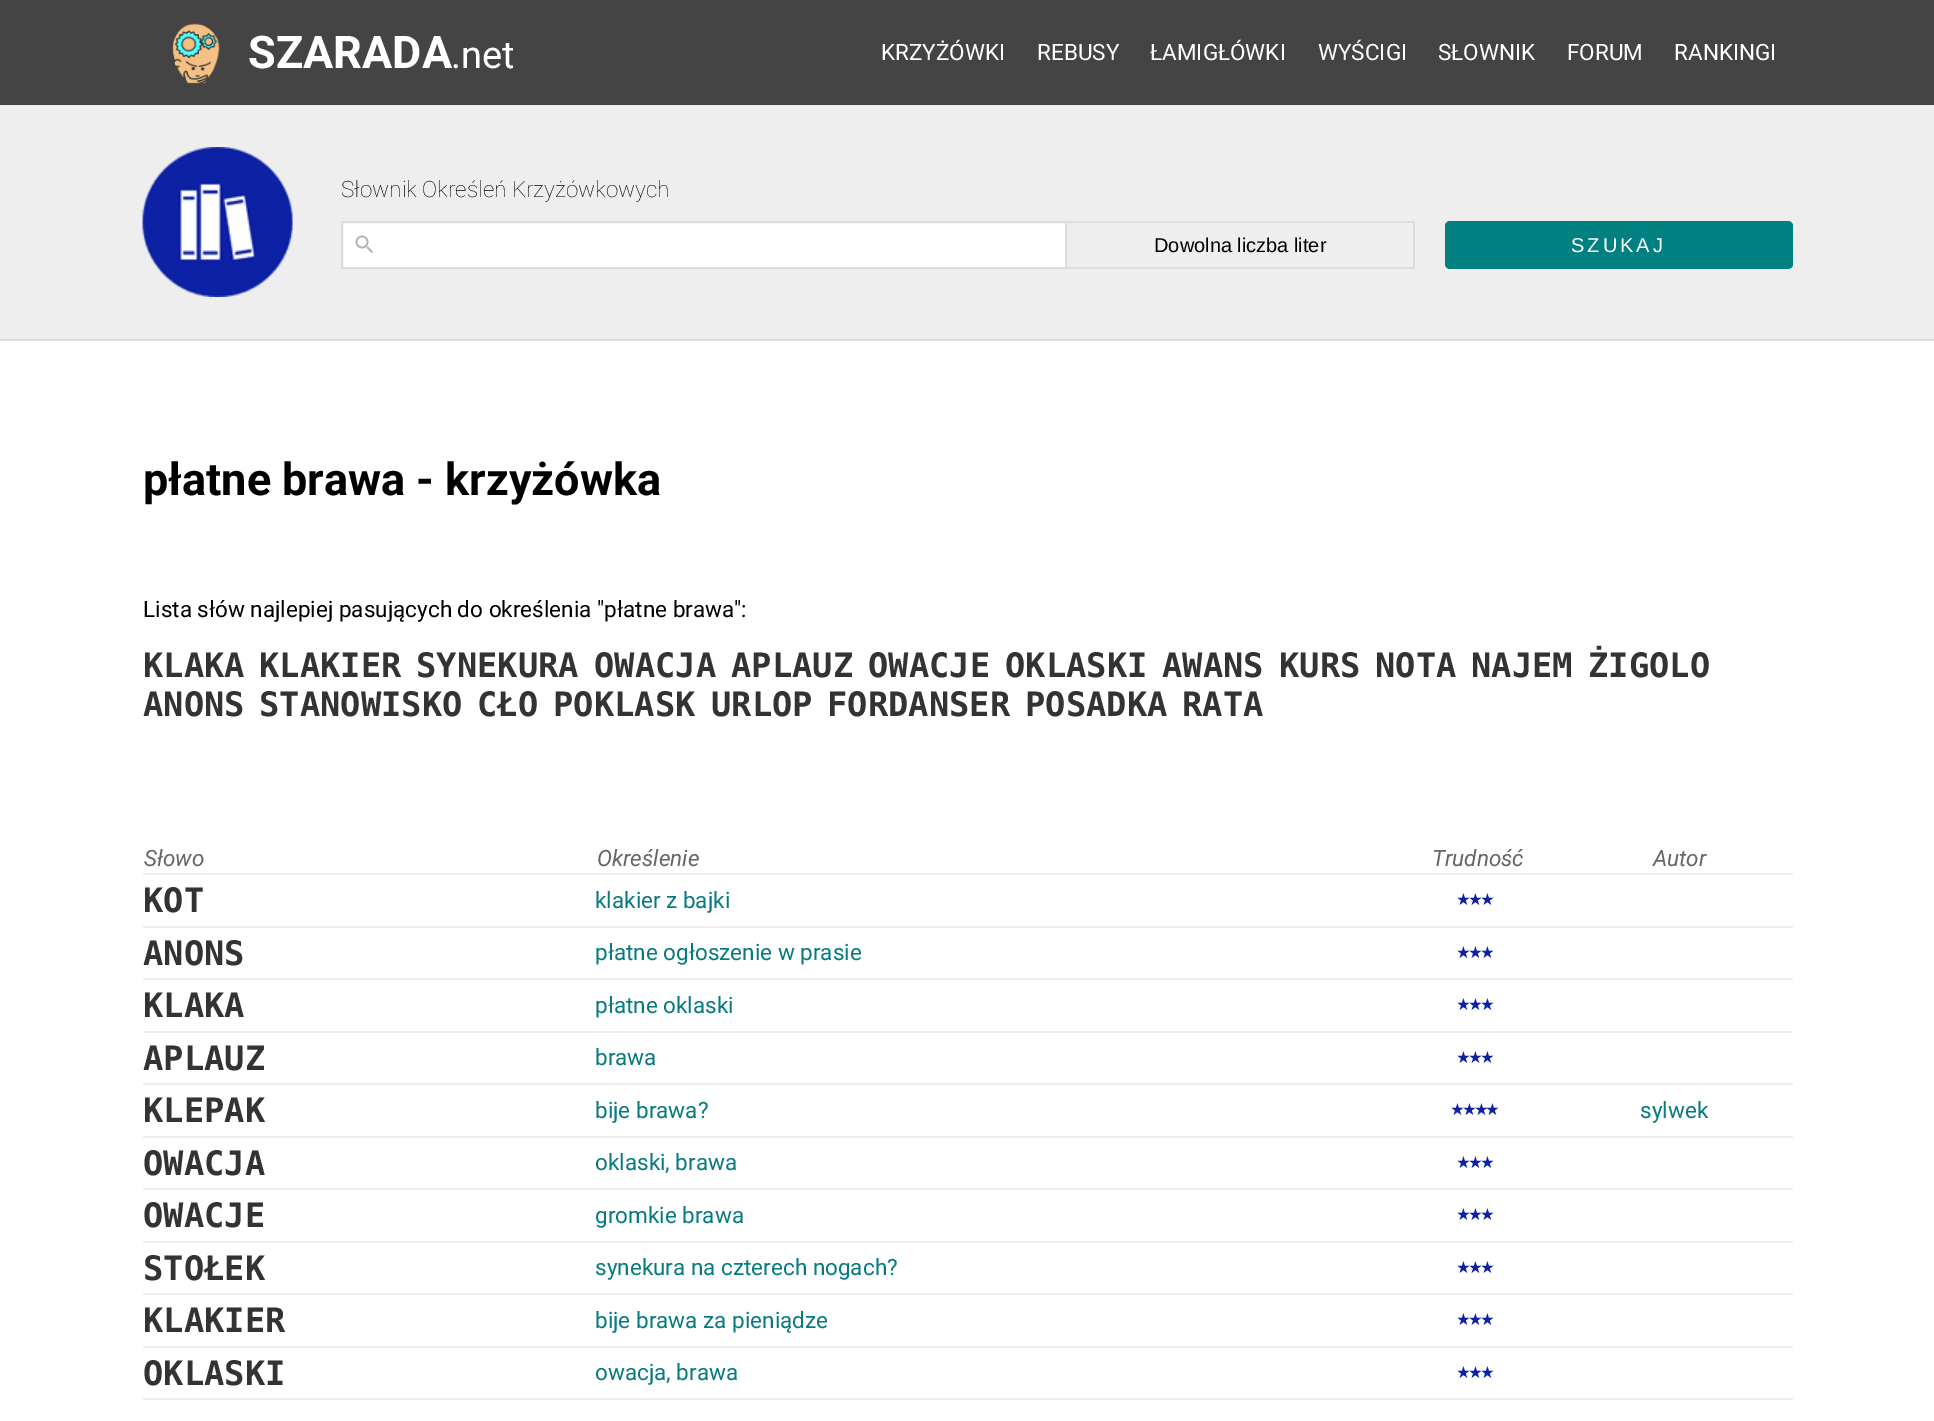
%!PS
<< /PageSize [1934 1421] >> setpagedevice
/m/moveto load def
/l/rlineto load def
/z/closepath load def
/f/fill load def
/s/stroke load def
/q/gsave load def
/Q_/grestore load def
/w/setlinewidth load def
/C { dup -16 bitshift 255 div exch dup -8 bitshift 255 and 255 div exch 255 and 255 div setrgbcolor } def
/F { [ exch dup neg 0 0 3 -1 roll 0 0 ] selectfont } def
/T { moveto show } def
/R { rectfill } def
/Q { 5 dict begin { /r /h /w /y /x } { exch def } forall
  x r add y moveto x w add y 2 copy h add r arct x w add y h add x 1 index r arct
  x y h add x y r arct x y 2 copy exch w add exch r arct closepath end } def
/I { 5 dict begin { /h /w /y /x /name } { exch def } forall
  gsave x y translate w h scale
  w h 8 [w 0 0 h 0 0] name (r) file false 3 colorimage grestore end } def
0 1421 translate 1 -1 scale
4 setmiterlimit
16#FFFFFF C
0 0 1934 1421 R
16#444444 C
0 0 1934 105 R
(1.rgb) 172 23 48 61 I
/Roboto-Bold 45 F
16#FFFFFF C
(SZARADA) 248 68 T
/Roboto-Regular 38 F
(.net) 451 68 T
/Roboto-Regular 22.5 F
(KRZYŻÓWKI) 881 60 T
(REBUSY) 1037 60 T
(ŁAMIGŁÓWKI) 1150 60 T
(WYŚCIGI) 1318 60 T
(SŁOWNIK) 1438 60 T
(FORUM) 1567 60 T
(RANKINGI) 1674 60 T
16#EEEEEE C
0 105 1934 234 R
16#DDDDDD C
0 339 1934 2 R
(2.rgb) 142 147 151 150 I
/Roboto-Thin 22.5 F
16#000000 C
(Słownik Określeń Krzyżówkowych) 341 197 T
16#FFFFFF C
342 222 m 724 0 l 0 46 l -724 0 l z q f Q_
16#DDDDDD C
2 w
s
(3.rgb) 355 235 18 18 I
1067 221 348 2 R
1413 221 2 48 R
1067 267 348 2 R
/LiberationSans-Regular 20 F
16#000000 C
(Dowolna liczba liter) 1154 252 T
16#008080 C
1445 221 348 48 5 Q f
16#FFFFFF C
1571 252 m 3 0 (SZUKAJ) ashow
/Roboto-Bold 45 F
16#000000 C
(płatne brawa - krzyżówka) 143 495 T
/Roboto-Regular 22.5 F
(Lista słów najlepiej pasujących do określenia "płatne brawa":) 143 617 T
/DejaVuSansMono-Bold 33.75 F
16#333333 C
(KLAKA) 143 677 T
(KLAKIER) 259 677 T
(SYNEKURA) 416 677 T
(OWACJA) 594 677 T
(APLAUZ) 731 677 T
(OWACJE) 868 677 T
(OKLASKI) 1005 677 T
(AWANS) 1162 677 T
(KURS) 1279 677 T
(NOTA) 1375 677 T
(NAJEM) 1471 677 T
(ŻIGOLO) 1588 677 T
(ANONS) 143 716 T
(STANOWISKO) 259 716 T
(CŁO) 477 716 T
(POKLASK) 553 716 T
(URLOP) 711 716 T
(FORDANSER) 827 716 T
(POSADKA) 1025 716 T
(RATA) 1182 716 T
/Roboto-Italic 22.5 F
16#666666 C
(Słowo) 144 866 T
(Określenie) 597 866 T
(Trudność) 1432 866 T
(Autor) 1653 866 T
16#EEEEEE C
143 873 1650 2 R
/DejaVuSansMono-Bold 33.75 F
16#333333 C
(KOT) 143 912 T
/Roboto-Regular 22.5 F
16#077B80 C
(klakier z bajki) 595 908 T
/DejaVuSans-Regular 16.5 F
16#0D21A4 C
1456 905 m -3 0 (★★★) ashow
16#EEEEEE C
143 926 1650 2 R
/DejaVuSansMono-Bold 33.75 F
16#333333 C
(ANONS) 143 965 T
/Roboto-Regular 22.5 F
16#077B80 C
(płatne ogłoszenie w prasie) 595 960 T
/DejaVuSans-Regular 16.5 F
16#0D21A4 C
1456 958 m -3 0 (★★★) ashow
16#EEEEEE C
143 978 1650 2 R
/DejaVuSansMono-Bold 33.75 F
16#333333 C
(KLAKA) 143 1017 T
/Roboto-Regular 22.5 F
16#077B80 C
(płatne oklaski) 595 1013 T
/DejaVuSans-Regular 16.5 F
16#0D21A4 C
1456 1010 m -3 0 (★★★) ashow
16#EEEEEE C
143 1031 1650 2 R
/DejaVuSansMono-Bold 33.75 F
16#333333 C
(APLAUZ) 143 1070 T
/Roboto-Regular 22.5 F
16#077B80 C
(brawa) 595 1065 T
/DejaVuSans-Regular 16.5 F
16#0D21A4 C
1456 1063 m -3 0 (★★★) ashow
16#EEEEEE C
143 1083 1650 2 R
/DejaVuSansMono-Bold 33.75 F
16#333333 C
(KLEPAK) 143 1122 T
/Roboto-Regular 22.5 F
16#077B80 C
(bije brawa?) 595 1118 T
/DejaVuSans-Regular 16.5 F
16#0D21A4 C
1450 1115 m -3 0 (★★★★) ashow
/Roboto-Regular 22.5 F
16#077B80 C
(sylwek) 1640 1118 T
16#EEEEEE C
143 1136 1650 2 R
/DejaVuSansMono-Bold 33.75 F
16#333333 C
(OWACJA) 143 1175 T
/Roboto-Regular 22.5 F
16#077B80 C
(oklaski, brawa) 595 1170 T
/DejaVuSans-Regular 16.5 F
16#0D21A4 C
1456 1168 m -3 0 (★★★) ashow
16#EEEEEE C
143 1188 1650 2 R
/DejaVuSansMono-Bold 33.75 F
16#333333 C
(OWACJE) 143 1227 T
/Roboto-Regular 22.5 F
16#077B80 C
(gromkie brawa) 595 1223 T
/DejaVuSans-Regular 16.5 F
16#0D21A4 C
1456 1220 m -3 0 (★★★) ashow
16#EEEEEE C
143 1241 1650 2 R
/DejaVuSansMono-Bold 33.75 F
16#333333 C
(STOŁEK) 143 1280 T
/Roboto-Regular 22.5 F
16#077B80 C
(synekura na czterech nogach?) 595 1275 T
/DejaVuSans-Regular 16.5 F
16#0D21A4 C
1456 1273 m -3 0 (★★★) ashow
16#EEEEEE C
143 1293 1650 2 R
/DejaVuSansMono-Bold 33.75 F
16#333333 C
(KLAKIER) 143 1332 T
/Roboto-Regular 22.5 F
16#077B80 C
(bije brawa za pieniądze) 595 1328 T
/DejaVuSans-Regular 16.5 F
16#0D21A4 C
1456 1325 m -3 0 (★★★) ashow
16#EEEEEE C
143 1346 1650 2 R
/DejaVuSansMono-Bold 33.75 F
16#333333 C
(OKLASKI) 143 1385 T
/Roboto-Regular 22.5 F
16#077B80 C
(owacja, brawa) 595 1380 T
/DejaVuSans-Regular 16.5 F
16#0D21A4 C
1456 1378 m -3 0 (★★★) ashow
16#EEEEEE C
143 1398 1650 2 R
showpage
